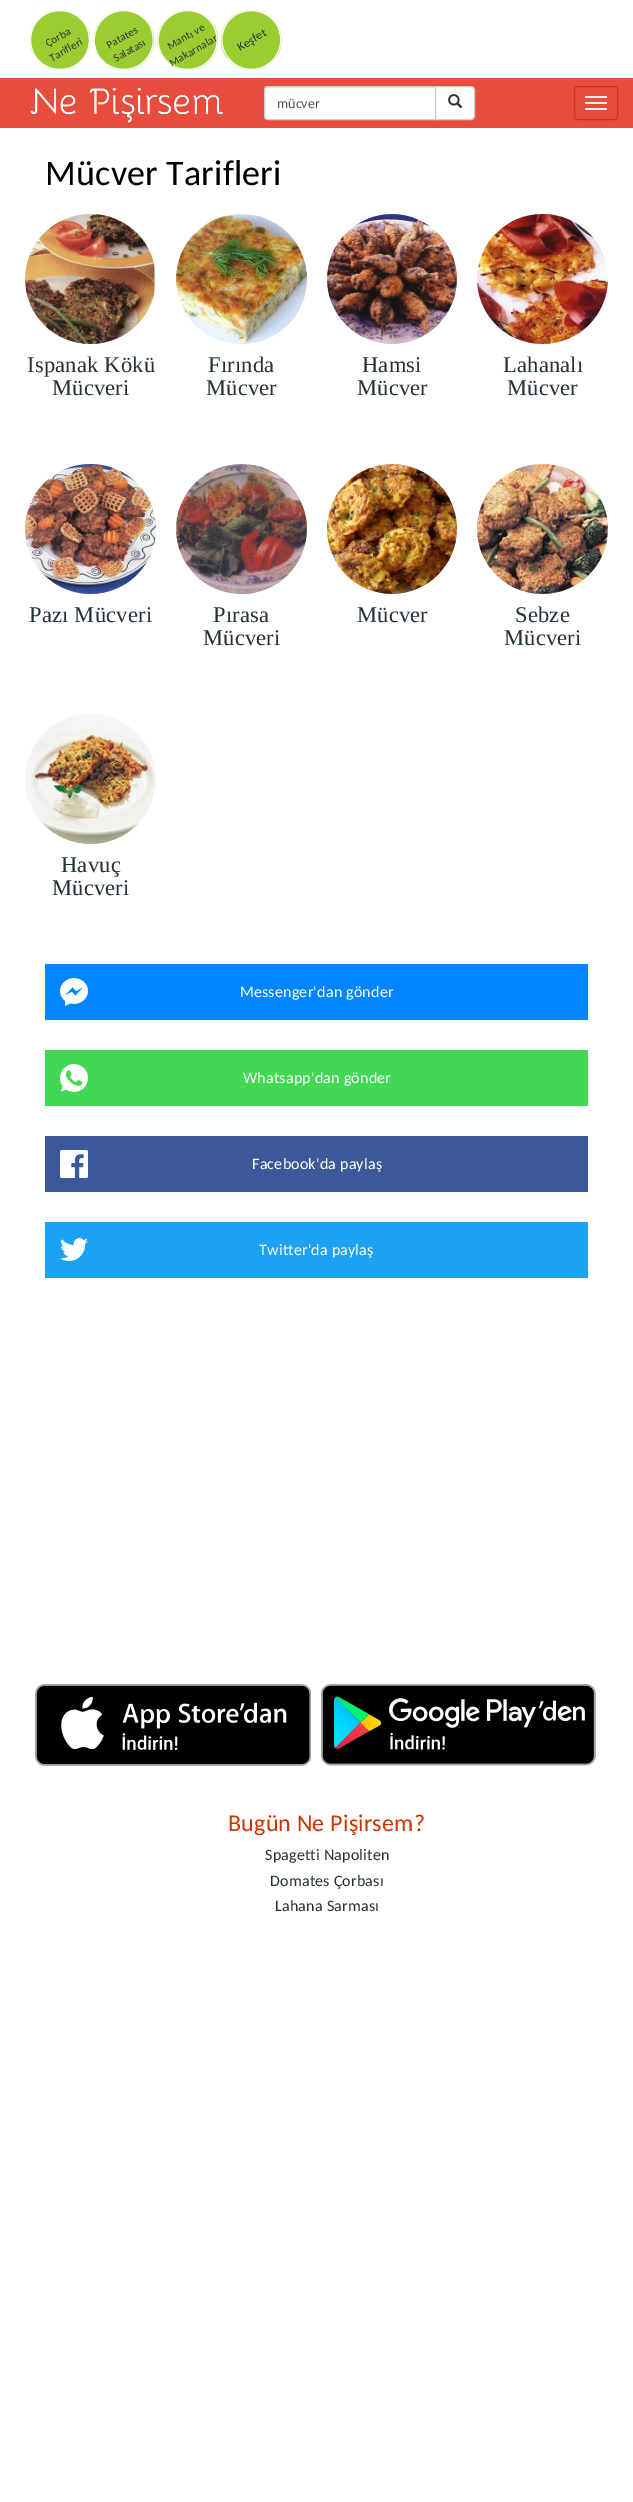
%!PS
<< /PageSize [633 2502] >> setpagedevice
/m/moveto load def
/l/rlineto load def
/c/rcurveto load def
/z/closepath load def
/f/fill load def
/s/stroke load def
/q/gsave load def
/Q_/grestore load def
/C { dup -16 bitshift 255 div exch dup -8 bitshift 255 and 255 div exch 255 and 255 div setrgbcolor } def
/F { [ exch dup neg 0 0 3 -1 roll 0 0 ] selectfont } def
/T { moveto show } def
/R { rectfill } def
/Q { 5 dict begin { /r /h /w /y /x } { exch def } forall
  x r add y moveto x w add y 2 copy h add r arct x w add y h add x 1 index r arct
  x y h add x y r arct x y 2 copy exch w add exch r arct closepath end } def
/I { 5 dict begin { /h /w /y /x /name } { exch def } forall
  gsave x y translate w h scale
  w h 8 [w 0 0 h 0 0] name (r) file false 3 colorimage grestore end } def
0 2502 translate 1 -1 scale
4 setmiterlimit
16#FFFFFF C
0 0 633 2502 R
16#9ACD32 C
45 14 m 14 -8 33 -3 41 11 c 8 14 3 33 -11 41 c -14 8 -33 3 -41 -11 c -8 -14 -3 -33 11 -41 c z f
16#FFFFFF C
45 14.5 m 14.5 -8 32.5 -3.5 40.5 10.5 c 8 14.5 3.5 32.5 -10.5 40.5 c -14.5 8 -32.5 3.5 -40.5 -10.5 c -8 -14.5 -3.5 -32.5 10.5 -40.5 c z s
/Carlito-Regular 11 F
16#333333 C
q 48 47 translate -30 rotate 0 0 m .2 0 (Çorba) ashow Q_
q 52 62 translate -30 rotate 0 0 m .2 0 (Tarifleri) ashow Q_
16#9ACD32 C
109 14 m 14 -8 32 -3 41 11 c 8 14 3 33 -11 41 c -15 8 -33 3 -41 -11 c -8 -14 -4 -33 11 -41 c z f
16#FFFFFF C
109 14.5 m 14 -8 32 -3.5 40.5 10.5 c 8 14.5 3 32.5 -11 40.5 c -14 8 -32 3.5 -40.5 -10.5 c -8 -14.5 -3 -32.5 11 -40.5 c z s
16#333333 C
q 109 49 translate -30 rotate 0 0 m .2 0 (Patates) ashow Q_
q 116 62 translate -30 rotate 0 0 m .2 0 (Salatası) ashow Q_
16#9ACD32 C
173 14 m 14 -8 32 -3 41 11 c 8 14 3 33 -11 41 c -15 8 -33 3 -41 -11 c -9 -14 -4 -33 11 -41 c z f
16#FFFFFF C
173 14.5 m 14 -8 32 -3.5 40 10.5 c 8.5 14.5 3.5 32.5 -10.5 40.5 c -14.5 8 -32.5 3.5 -40.5 -10.5 c -8 -14.5 -3.5 -32.5 11 -40.5 c z s
16#333333 C
q 170 50 translate -30 rotate 0 0 m .2 0 (Mantı ve) ashow Q_
q 172 67 translate -30 rotate 0 0 m .2 0 (Makarnalar) ashow Q_
16#9ACD32 C
236 14 m 15 -8 33 -3 41 11 c 9 14 4 33 -11 41 c -14 8 -32 3 -41 -11 c -8 -14 -3 -33 11 -41 c z f
16#FFFFFF C
236.5 14.5 m 14 -8 32 -3.5 40.5 10.5 c 8 14.5 3 32.5 -11 40.5 c -14 8 -32 3.5 -40 -11 c -8.5 -14 -3.5 -32 10.5 -40 c z s
/Carlito-Regular 12 F
16#23323A C
q 240 51 translate -30 rotate 0 0 m .2 0 (Keşfet) ashow Q_
16#E74C3C C
0 78 633 50 R
(1.rgb) 30 88 193 35 I
16#FFFFFF C
268 86 m 168 0 l 0 34 l -168 0 l -2 0 -4 -2 -4 -4 c 0 -26 l 0 -2 2 -4 4 -4 c z f
16#ECECEC C
268 88 m 167 0 l 0 -1 l -168 0 l -2 0 -2 2 -2 4 c 0 -2 1 -3 3 -3 c z f
16#CCCCCC C
268 86.5 m 167.5 0 l 0 33 l -167.5 0 l -2 0 -3.5 -1.5 -3.5 -3.5 c 0 -26 l 0 -2 1.5 -3.5 3.5 -3.5 c z s
/Carlito-Regular 14 F
16#555555 C
(mücver) 277 108 T
16#FFFFFF C
435.5 86.5 m 35.5 0 l 2 0 3.5 1.5 3.5 3.5 c 0 26 l 0 2 -1.5 3.5 -3.5 3.5 c -35.5 0 l z q f Q_
16#CCCCCC C
s
(2.rgb) 448 94 15 14 I
16#C0392B C
574.5 86.5 43 33 3.5 Q s
16#ECF0F1 C
585 96 22 2 1 Q f
585 102 22 2 1 Q f
585 108 22 2 1 Q f
/Carlito-Regular 36 F
16#000000 C
45 185 m .2 0 (Mücver Tarifleri) ashow
(3.rgb) 25 214 131 130 I
/LiberationSerif-Regular 22.5 F
16#23323A C
27 372 m .2 0 (Ispanak Kökü) ashow
52 395 m .2 0 (Mücveri) ashow
(4.rgb) 176 214 131 130 I
208 372 m .2 0 (Fırında) ashow
206 395 m .2 0 (Mücver) ashow
(5.rgb) 327 214 130 130 I
362 372 m .2 0 (Hamsi) ashow
357 395 m .2 0 (Mücver) ashow
(6.rgb) 477 214 131 130 I
503 372 m .2 0 (Lahanalı) ashow
507 395 m .2 0 (Mücver) ashow
(7.rgb) 25 464 131 130 I
29 622 m .2 0 (Pazı Mücveri) ashow
(8.rgb) 176 464 131 130 I
213 622 m .2 0 (Pırasa) ashow
203 645 m .2 0 (Mücveri) ashow
(9.rgb) 327 464 130 130 I
357 622 m .2 0 (Mücver) ashow
(10.rgb) 477 464 131 130 I
515 622 m .2 0 (Sebze) ashow
504 645 m .2 0 (Mücveri) ashow
(11.rgb) 25 714 131 130 I
61 872 m .2 0 (Havuç) ashow
52 895 m .2 0 (Mücveri) ashow
16#0084FF C
45 964 543 56 R
(12.rgb) 60 978 28 28 I
/Carlito-Regular 16 F
16#FFFFFF C
240 997 m .2 0 (Messenger'dan gönder) ashow
16#43D854 C
45 1050 543 56 R
(13.rgb) 60 1064 28 28 I
16#FFFFFF C
243 1083 m .2 0 (Whatsapp'dan gönder) ashow
16#3B5998 C
45 1136 543 56 R
(14.rgb) 60 1150 28 28 I
16#FFFFFF C
252 1169 m .2 0 (Facebook'da paylaş) ashow
16#1DA1F2 C
45 1222 543 56 R
(15.rgb) 60 1238 28 23 I
16#FFFFFF C
259 1255 m .2 0 (Twitter'da paylaş) ashow
(16.rgb) 35 1684 276 82 I
(17.rgb) 321 1684 275 82 I
/Carlito-Regular 24 F
16#CC3300 C
228 1831 m .2 0 (Bugün Ne Pişirsem?) ashow
/Carlito-Regular 16 F
16#23323A C
265 1860 m .2 0 (Spagetti Napoliten) ashow
270 1886 m .2 0 (Domates Çorbası) ashow
275 1911 m .2 0 (Lahana Sarması) ashow
showpage
